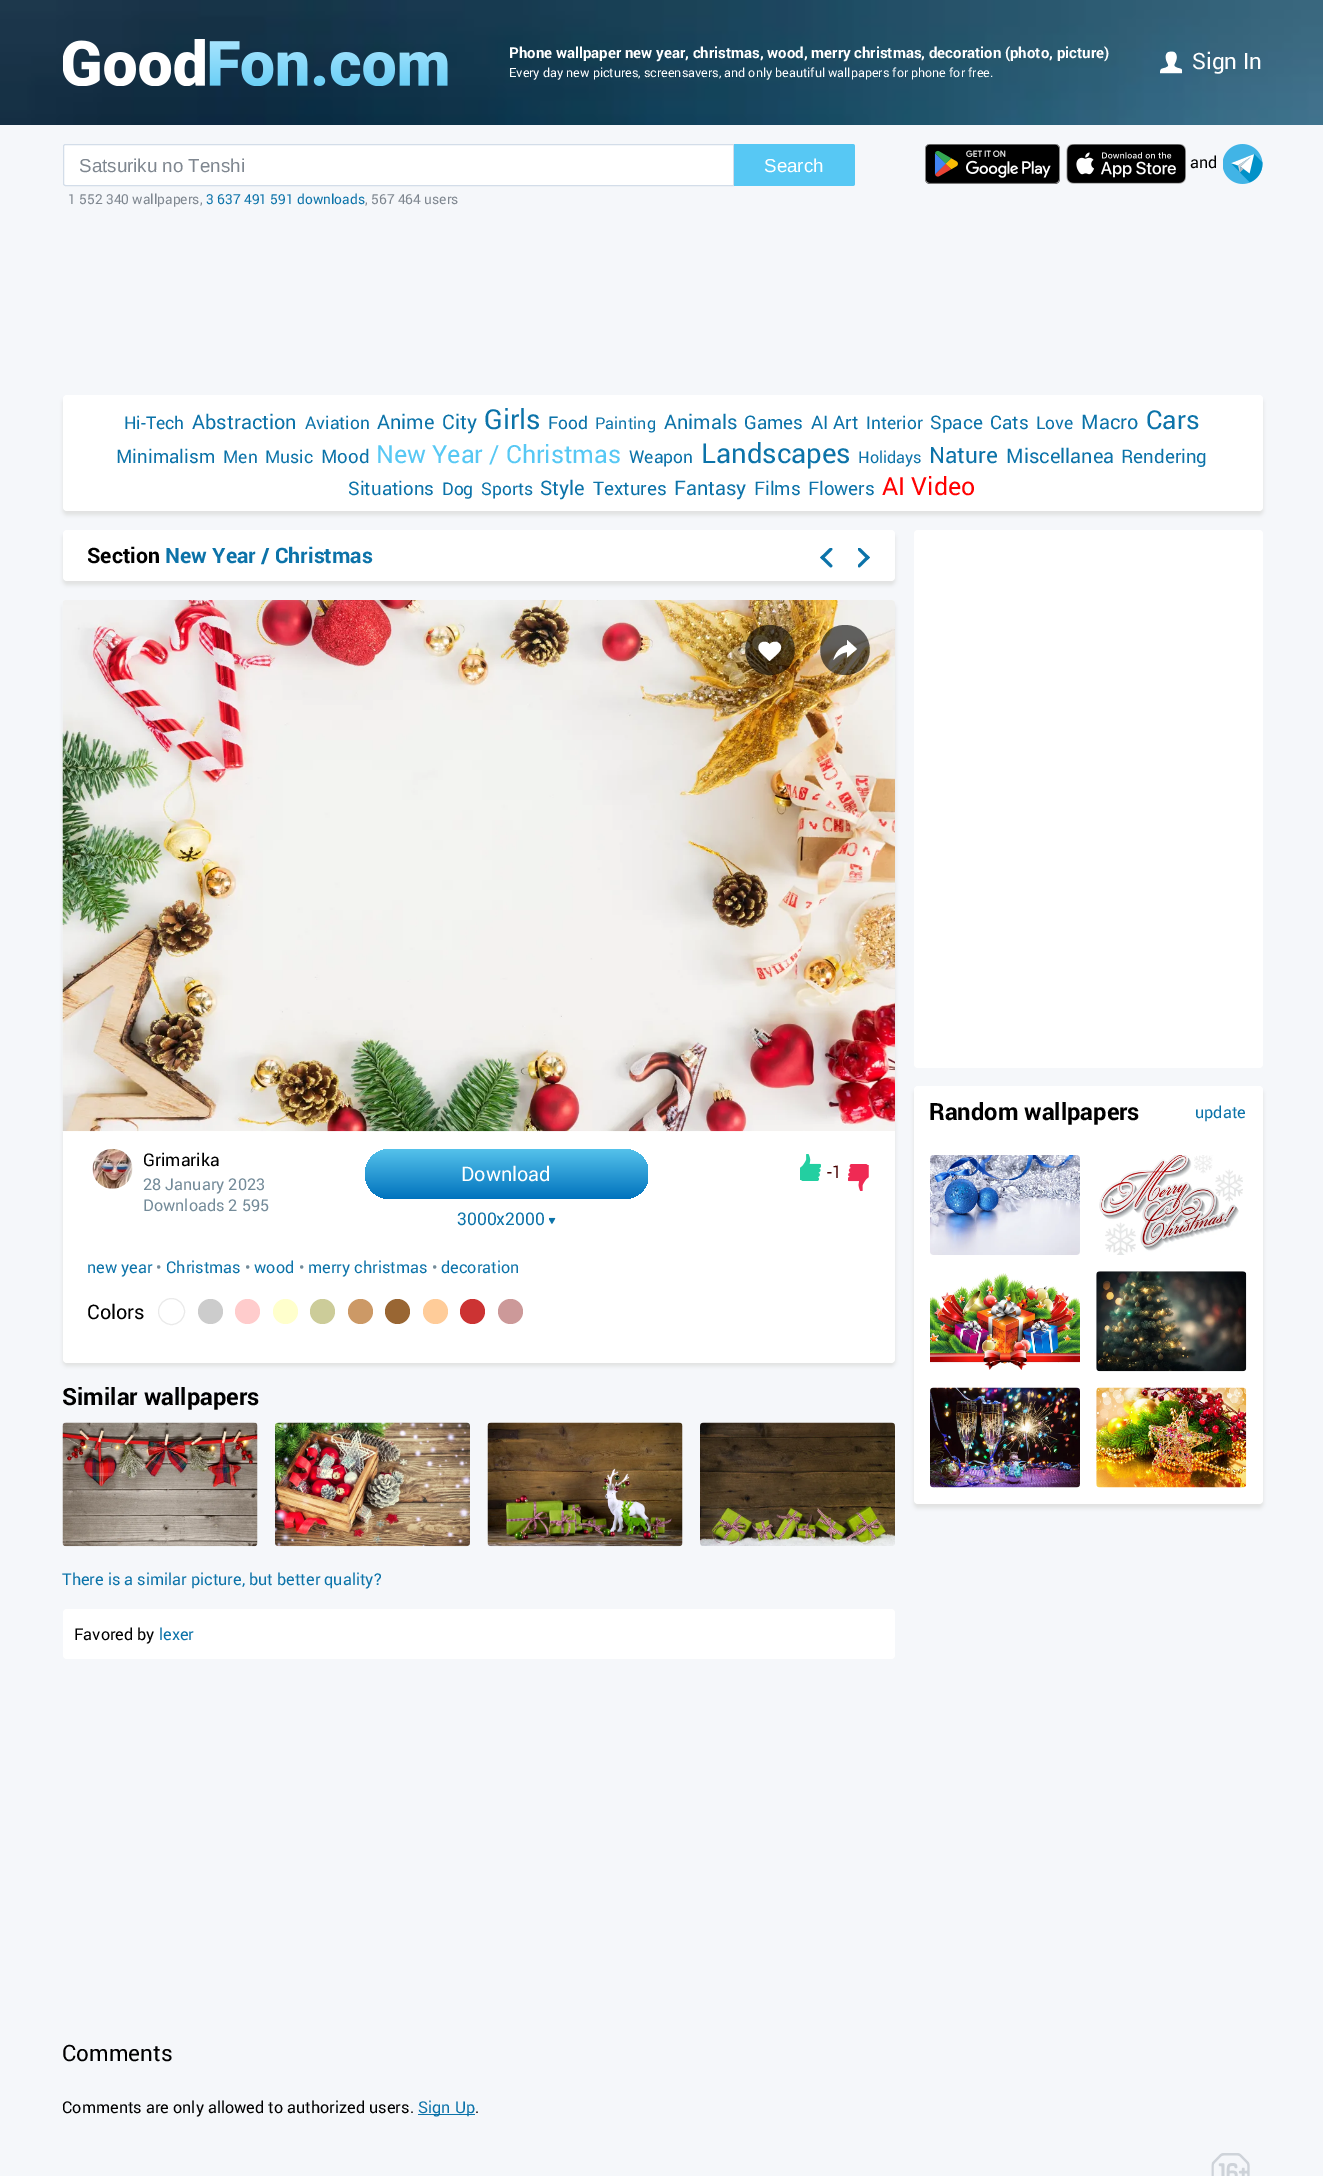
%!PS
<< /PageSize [1323 2176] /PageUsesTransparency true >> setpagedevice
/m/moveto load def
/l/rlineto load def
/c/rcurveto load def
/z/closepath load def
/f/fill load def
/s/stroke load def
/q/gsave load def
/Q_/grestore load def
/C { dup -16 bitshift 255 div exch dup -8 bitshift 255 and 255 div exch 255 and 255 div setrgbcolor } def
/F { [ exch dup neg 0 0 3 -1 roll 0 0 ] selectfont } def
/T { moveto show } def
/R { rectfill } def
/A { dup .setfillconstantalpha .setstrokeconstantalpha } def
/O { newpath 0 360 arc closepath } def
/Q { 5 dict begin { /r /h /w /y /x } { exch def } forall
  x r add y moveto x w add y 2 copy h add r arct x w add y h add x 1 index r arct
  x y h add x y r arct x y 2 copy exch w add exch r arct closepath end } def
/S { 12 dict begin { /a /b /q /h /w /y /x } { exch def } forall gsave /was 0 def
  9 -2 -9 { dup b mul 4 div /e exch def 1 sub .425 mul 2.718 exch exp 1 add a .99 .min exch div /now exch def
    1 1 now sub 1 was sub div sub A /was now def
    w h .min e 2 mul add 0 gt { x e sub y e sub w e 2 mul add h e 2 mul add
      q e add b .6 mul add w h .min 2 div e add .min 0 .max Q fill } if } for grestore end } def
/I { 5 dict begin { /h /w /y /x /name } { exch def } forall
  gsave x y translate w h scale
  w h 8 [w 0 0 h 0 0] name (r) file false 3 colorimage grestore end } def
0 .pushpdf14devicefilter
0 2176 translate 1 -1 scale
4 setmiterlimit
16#F5F7FA C
0 0 1323 2176 R
(1.rgb) 0 0 1323 125 I
(2.rgb) 63 39 385 47 I
/Roboto-Bold 15 F
16#FFFFFF C
(Phone wallpaper new year, christmas, wood, merry christmas, decoration \(photo, picture\)) 509 58 T
/Roboto-Regular 12.5 F
(Every day new pictures, screensavers, and only beautiful wallpapers for phone for free.) 509 77 T
(3.rgb) 1160 51 23 23 I
/Roboto-Regular 22.5 F
(Sign In) 1192 69 T
65.5 144.5 m 668 0 l 0 41 l -668 0 l -1 0 -2 -1 -2 -2 c 0 -37 l 0 -1 1 -2 2 -2 c z q f Q_
16#D3DDE9 C
s
/LiberationSans-Regular 18.75 F
16#7F8790 C
(Satsuriku no Tenshi) 79 172 T
16#57C8F4 C
734 144 m 118.5 0 l 1.5 0 2.5 1 2.5 2.5 c 0 37 l 0 1.5 -1 2.5 -2.5 2.5 c -118.5 0 l z f
16#FFFFFF C
(Search) 764 172 T
/Roboto-Regular 13.75 F
16#7F8790 C
(1 552 340 wallpapers,) 68 204 T
16#0C73A9 C
(3 637 491 591 downloads) 206 204 T
16#7F8790 C
(, 567 464 users) 365 204 T
(4.rgb) 925 144 135 40 I
(5.rgb) 1066 144 120 40 I
/Roboto-Regular 16.25 F
16#000000 C
(and) 1190 168 T
(6.rgb) 1223 144 40 40 I
16#E1E1E1 C
63 399 1200 116 4 2 1 S
16#FFFFFF C
63 395 1200 116 4 Q f
/Roboto-Regular 17.5 F
16#0C73A9 C
(Hi-Tech) 124 429 T
/Roboto-Regular 20 F
(Abstraction) 192 429 T
/Roboto-Regular 17.5 F
(Aviation) 305 429 T
/Roboto-Regular 20 F
(Anime) 377 429 T
(City) 442 429 T
/Roboto-Regular 27.5 F
(Girls) 484 429 T
/Roboto-Regular 17.5 F
(Food) 548 429 T
/Roboto-Regular 16.25 F
(Painting) 595 429 T
/Roboto-Regular 20 F
(Animals) 664 429 T
/Roboto-Regular 18.75 F
(Games) 744 429 T
(AI Art) 811 429 T
/Roboto-Regular 17.5 F
(Interior) 866 429 T
/Roboto-Regular 18.75 F
(Space) 930 429 T
(Cats) 990 429 T
/Roboto-Regular 17.5 F
(Love) 1036 429 T
/Roboto-Regular 20 F
(Macro) 1081 429 T
/Roboto-Regular 26 F
(Cars) 1146 429 T
/Roboto-Regular 18.75 F
(Minimalism) 116 463 T
/Roboto-Regular 17.5 F
(Men) 223 463 T
(Music) 265 463 T
/Roboto-Regular 18.75 F
(Mood) 321 463 T
/Roboto-Regular 25 F
16#57C8F4 C
(New Year / Christmas) 376 463 T
/Roboto-Regular 17.5 F
16#0C73A9 C
(Weapon) 629 463 T
/Roboto-Regular 27.5 F
(Landscapes) 701 463 T
/Roboto-Regular 16.25 F
(Holidays) 858 463 T
/Roboto-Regular 22.5 F
(Nature) 929 463 T
/Roboto-Regular 20 F
(Miscellanea) 1006 463 T
/Roboto-Regular 18.75 F
(Rendering) 1121 463 T
(Situations) 348 495 T
/Roboto-Regular 17.5 F
(Dog) 442 495 T
(Sports) 481 495 T
/Roboto-Regular 20 F
(Style) 540 495 T
/Roboto-Regular 18.75 F
(Textures) 593 495 T
/Roboto-Regular 20 F
(Fantasy) 674 495 T
/Roboto-Regular 18.75 F
(Films) 754 495 T
(Flowers) 808 495 T
/Roboto-Regular 25 F
16#FF0000 C
(AI Video) 882 495 T
16#E1E1E1 C
63 534 832 51 4 2 1 S
16#FFFFFF C
63 530 832 51 4 Q f
/Roboto-Bold 21.25 F
16#000000 C
(Section) 87 563 T
16#0C73A9 C
(New Year / Christmas) 165 563 T
(7.rgb) 820 548 13 20 I
(8.rgb) 858 548 12 20 I
16#E1E1E1 C
63 604 832 762 4 2 1 S
16#FFFFFF C
63 600 832 763 4 Q f
(9.rgb) 62 600 833 532 I
0.6 A
16#000000 C
770 675 m 33 0 33 -50 0 -50 c -33 0 -33 50 0 50 c eofill
1 A
16#FFFFFF C
780.5 645 m -2.5 -4.5 -9 -4 -11 -.5 c -1.5 -3.5 -8.5 -4 -10.5 .5 c -2.5 5.5 3.5 9 10.5 16 c 7.5 -7 13.5 -10.5 11 -16 c eofill
0.6 A
16#000000 C
845 675 m 33 0 33 -50 0 -50 c -33 0 -33 50 0 50 c eofill
1 A
16#FFFFFF C
847 645 m 0 -5 l 10 9 l -10 8.5 l 0 -5.5 l 0 0 -7.5 1 -13.5 8 c 3 -13 13.5 -15 13.5 -15 c eofill
(10.rgb) 92 1148 41 41 I
/Roboto-Regular 17.5 F
16#000000 C
(Grimarika) 143 1166 T
/Roboto-Regular 16.25 F
16#748B99 C
(28 January 2023) 143 1190 T
(Downloads 2 595) 143 1211 T
q 365 1149 284 50 25 Q clip newpath
<< /ShadingType 2 /ColorSpace /DeviceRGB /Coords [506 1149 506 1199] /Extend [true true] /Function << /FunctionType 2 /Domain [0 1] /C0 [.333 .761 .922] /C1 [0 .447 .741] /N 1 >> >> shfill Q_
16#FFFFFF C
648 1161 1 25 R
/Roboto-Regular 20 F
(Download) 461 1181 T
/Roboto-Regular 17.5 F
16#0C73A9 C
(3000x2000) 457 1225 T
(11.rgb) 549 1217 7 7 I
(12.rgb) 800 1154 21 27 I
16#470000 C
(-1) 827 1178 T
(13.rgb) 848 1164 21 27 I
/Roboto-Regular 16.25 F
16#0C73A9 C
(new year) 87 1273 T
16#748B99 C
(•) 156 1273 T
16#0C73A9 C
(Christmas) 166 1273 T
16#748B99 C
(•) 245 1273 T
16#0C73A9 C
(wood) 254 1273 T
16#748B99 C
(•) 299 1273 T
16#0C73A9 C
(merry christmas) 308 1273 T
16#748B99 C
(•) 432 1273 T
16#0C73A9 C
(decoration) 441 1273 T
/Roboto-Regular 20 F
16#000000 C
(Colors) 87 1319 T
16#EAEAEA C
171.5 1311.5 13 O s
16#CCCCCC C
210.5 1311.5 12.5 O f
16#FFCCCC C
247.5 1311.5 12.5 O f
16#FFFFCC C
285.5 1311.5 12.5 O f
16#CCCC99 C
322.5 1311.5 12.5 O f
16#CC9966 C
360.5 1311.5 12.5 O f
16#996633 C
397.5 1311.5 12.5 O f
16#FFCC99 C
435.5 1311.5 12.5 O f
16#CC3333 C
472.5 1311.5 12.5 O f
16#CC9999 C
510.5 1311.5 12.5 O f
/Roboto-Bold 23.75 F
16#000000 C
(Similar wallpapers) 62 1405 T
(14.rgb) 62 1422 196 125 I
(15.rgb) 275 1422 195 125 I
(16.rgb) 487 1422 196 125 I
(17.rgb) 700 1422 195 124 I
/Roboto-Regular 16.25 F
16#0C73A9 C
(There is a similar picture, but better quality?) 62 1585 T
16#FFFFFF C
63 1609 832 50 4 Q f
16#000000 C
(Favored by) 74 1640 T
16#0C73A9 C
(lexer) 159 1640 T
/Roboto-Regular 22.5 F
16#000000 C
(Comments) 62 2061 T
/Roboto-Regular 16.25 F
(Comments are only allowed to authorized users.) 62 2113 T
16#0C73A9 C
418 2114 57 1 R
(Sign Up) 418 2113 T
16#000000 C
(.) 475 2113 T
16#FFFFFF C
914 530 349 538 4 Q f
16#E1E1E1 C
914 1090 349 418 4 2 1 S
16#FFFFFF C
914 1086 349 418 4 Q f
/Roboto-Bold 23.75 F
16#000000 C
(Random wallpapers) 929 1120 T
/Roboto-Regular 16.25 F
16#0C73A9 C
(update) 1195 1118 T
(18.rgb) 930 1155 150 100 I
(19.rgb) 1099 1155 144 100 I
(20.rgb) 930 1273 150 97 I
(21.rgb) 1096 1271 151 101 I
(22.rgb) 930 1387 150 101 I
(23.rgb) 1096 1387 151 101 I
(24.rgb) 1211 2153 39 23 I
.poppdf14devicefilter showpage
